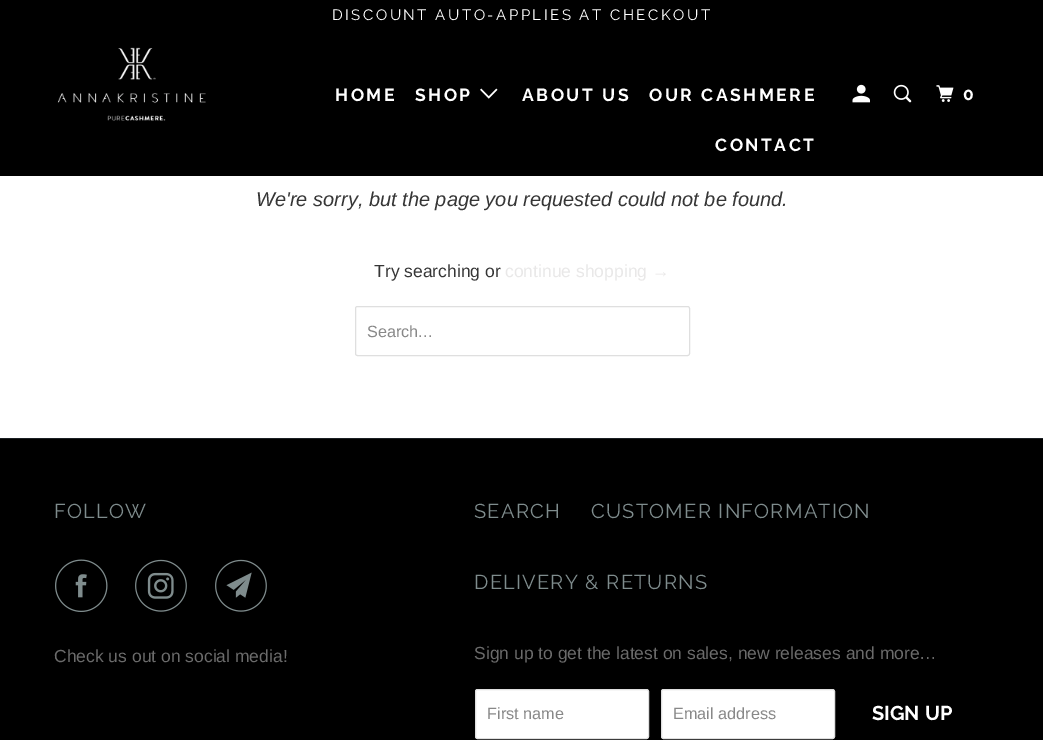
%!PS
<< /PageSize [1043 740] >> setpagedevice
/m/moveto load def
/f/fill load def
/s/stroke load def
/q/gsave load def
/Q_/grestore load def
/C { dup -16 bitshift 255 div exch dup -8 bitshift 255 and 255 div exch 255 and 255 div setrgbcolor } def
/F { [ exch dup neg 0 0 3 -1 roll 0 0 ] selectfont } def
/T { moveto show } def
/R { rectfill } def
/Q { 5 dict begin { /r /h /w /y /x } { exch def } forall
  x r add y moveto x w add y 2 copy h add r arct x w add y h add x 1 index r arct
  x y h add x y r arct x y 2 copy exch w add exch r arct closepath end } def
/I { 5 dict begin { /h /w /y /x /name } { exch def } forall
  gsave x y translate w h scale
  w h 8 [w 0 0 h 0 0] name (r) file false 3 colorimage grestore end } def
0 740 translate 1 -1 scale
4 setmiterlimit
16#FFFFFF C
0 0 1043 740 R
16#000000 C
0 0 1043 176 R
/Raleway-Regular 15 F
16#FFFFFF C
332 20 m 2.5 0 (DISCOUNT AUTO-APPLIES AT CHECKOUT) ashow
(1.rgb) 57 47 149 74 I
/Raleway-Bold 17.5 F
335 101 m 2.5 0 (HOME) ashow
415 101 m 2.5 0 (SHOP) ashow
(2.rgb) 480 88 18 11 I
522 101 m 2.5 0 (ABOUT US) ashow
649 101 m 2.5 0 (OUR CASHMERE) ashow
715 151 m 2.5 0 (CONTACT) ashow
(3.rgb) 852 84 18 19 I
(4.rgb) 893 84 19 19 I
(5.rgb) 936 85 18 17 I
963 100 m 2.5 0 (0) ashow
/LiberationSans-Italic 20 F
16#363636 C
(We're sorry, but the page you requested could not be found.) 256 206 T
/LiberationSans-Regular 17.5 F
(Try searching or) 374 277 T
16#E9E8E8 C
(continue shopping →) 505 277 T
16#DFDFDF C
355.5 306.5 334 49 2 Q s
/LiberationSans-Regular 16.25 F
16#888888 C
(Search...) 367 337 T
16#000000 C
0 439 1043 301 R
16#1B1F23 C
0 438 1043 1 R
/Raleway-Regular 20 F
16#7F8C8D C
54 518 m 1.25 0 (FOLLOW) ashow
(6.rgb) 55 559 53 53 I
(7.rgb) 135 559 52 53 I
(8.rgb) 215 559 52 53 I
/LiberationSans-Regular 17.5 F
16#6B6B6B C
(Check us out on social media!) 54 662 T
/Raleway-Regular 20 F
16#7F8C8D C
474 518 m 1.25 0 (SEARCH) ashow
591 518 m 1.25 0 (CUSTOMER INFORMATION) ashow
474 589 m 1.25 0 (DELIVERY & RETURNS) ashow
/LiberationSans-Regular 17.5 F
16#6B6B6B C
(Sign up to get the latest on sales, new releases and more…) 474 659 T
16#FFFFFF C
475.5 689.5 173 49 2 Q q f Q_
16#DFDFDF C
s
/LiberationSans-Regular 16.25 F
16#888888 C
(First name) 487 719 T
16#FFFFFF C
661.5 689.5 173 49 2 Q q f Q_
16#DFDFDF C
s
16#888888 C
(Email address) 673 719 T
/Raleway-Bold 20 F
16#FFFFFF C
(SIGN UP) 872 720 T
showpage
